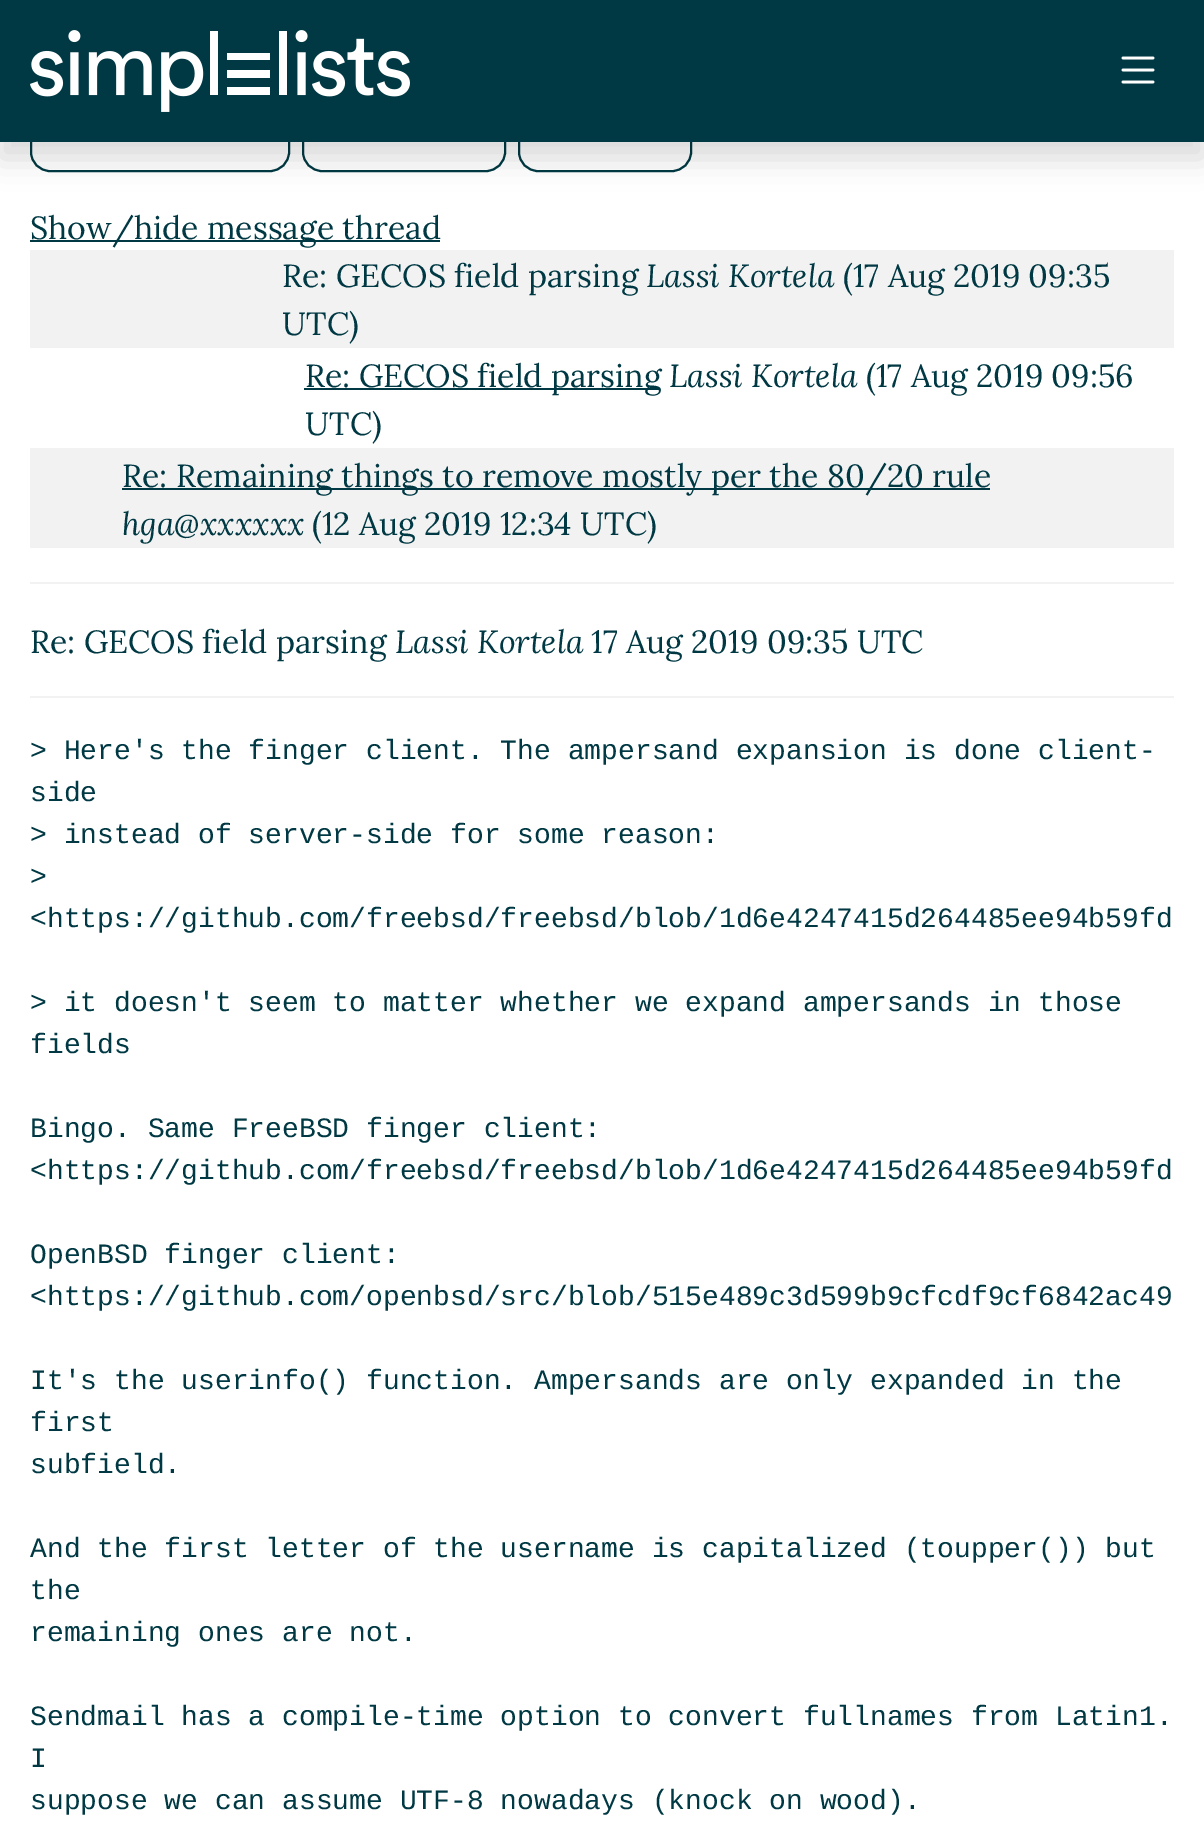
%!PS
<< /PageSize [1204 1831] /PageUsesTransparency true >> setpagedevice
/s/stroke load def
/w/setlinewidth load def
/C { dup -16 bitshift 255 div exch dup -8 bitshift 255 and 255 div exch 255 and 255 div setrgbcolor } def
/F { [ exch dup neg 0 0 3 -1 roll 0 0 ] selectfont } def
/T { moveto show } def
/R { rectfill } def
/A { dup .setfillconstantalpha .setstrokeconstantalpha } def
/Q { 5 dict begin { /r /h /w /y /x } { exch def } forall
  x r add y moveto x w add y 2 copy h add r arct x w add y h add x 1 index r arct
  x y h add x y r arct x y 2 copy exch w add exch r arct closepath end } def
/S { 12 dict begin { /a /b /q /h /w /y /x } { exch def } forall gsave /was 0 def
  9 -2 -9 { dup b mul 4 div /e exch def 1 sub .425 mul 2.718 exch exp 1 add a .99 .min exch div /now exch def
    1 1 now sub 1 was sub div sub A /was now def
    w h .min e 2 mul add 0 gt { x e sub y e sub w e 2 mul add h e 2 mul add
      q e add b .6 mul add w h .min 2 div e add .min 0 .max Q fill } if } for grestore end } def
/I { 5 dict begin { /h /w /y /x /name } { exch def } forall
  gsave x y translate w h scale
  w h 8 [w 0 0 h 0 0] name (r) file false 3 colorimage grestore end } def
0 .pushpdf14devicefilter
0 1831 translate 1 -1 scale
4 setmiterlimit
16#FFFFFF C
0 0 1204 1831 R
16#003944 C
2 w
31 93 258 78 19 Q s
303 93 202 78 19 Q s
519 93 172 78 19 Q s
16#000000 C
0 16 1204 142 0 15 .15 S
16#003944 C
0 0 1204 142 R
(1.rgb) 30 30 380 82 I
(2.rgb) 1121 56 34 28 I
30 240 410 2 R
/Lora-Regular 32 F
(Show/hide message thread) 30 239 T
16#F2F2F2 C
30 250 1144 98 R
16#003944 C
(Re: GECOS field parsing) 282 287 T
/Lora-Italic 32 F
(Lassi Kortela) 646 287 T
/Lora-Regular 32 F
(\(17 Aug 2019 09:35) 843 287 T
(UTC\)) 282 335 T
304 388 356 2 R
(Re: GECOS field parsing) 305 387 T
/Lora-Italic 32 F
(Lassi Kortela) 669 387 T
/Lora-Regular 32 F
(\(17 Aug 2019 09:56) 866 387 T
(UTC\)) 305 435 T
16#F2F2F2 C
30 448 1144 100 R
16#003944 C
122 488 868 2 R
(Re: Remaining things to remove mostly per the 80/20 rule) 122 487 T
/Lora-Italic 32 F
(hga@xxxxxx) 122 535 T
/Lora-Regular 32 F
(\(12 Aug 2019 12:34 UTC\)) 312 535 T
16#F2F2F2 C
30 582 1144 2 R
16#003944 C
(Re: GECOS field parsing) 30 653 T
/Lora-Italic 32 F
(Lassi Kortela) 395 653 T
/Lora-Regular 32 F
(17 Aug 2019 09:35 UTC) 591 653 T
16#F2F2F2 C
30 696 1144 2 R
/LiberationMono-Regular 28 F
16#003944 C
(> Here's the finger client. The ampersand expansion is done client-) 30 759 T
(side) 30 801 T
(> instead of server-side for some reason:) 30 843 T
(>) 30 885 T
(<https://github.com/freebsd/freebsd/blob/1d6e4247415d264485ee94b59fd) 30 927 T
(> it doesn't seem to matter whether we expand ampersands in those) 30 1011 T
(fields) 30 1053 T
(Bingo. Same FreeBSD finger client:) 30 1137 T
(<https://github.com/freebsd/freebsd/blob/1d6e4247415d264485ee94b59fd) 30 1179 T
(OpenBSD finger client:) 30 1263 T
(<https://github.com/openbsd/src/blob/515e489c3d599b9cfcdf9cf6842ac49) 30 1305 T
(It's the userinfo\(\) function. Ampersands are only expanded in the) 30 1389 T
(first) 30 1431 T
(subfield.) 30 1473 T
(And the first letter of the username is capitalized \(toupper\(\)\) but) 30 1557 T
(the) 30 1599 T
(remaining ones are not.) 30 1641 T
(Sendmail has a compile-time option to convert fullnames from Latin1.) 30 1725 T
(I) 30 1767 T
(suppose we can assume UTF-8 nowadays \(knock on wood\).) 30 1809 T
.poppdf14devicefilter showpage
